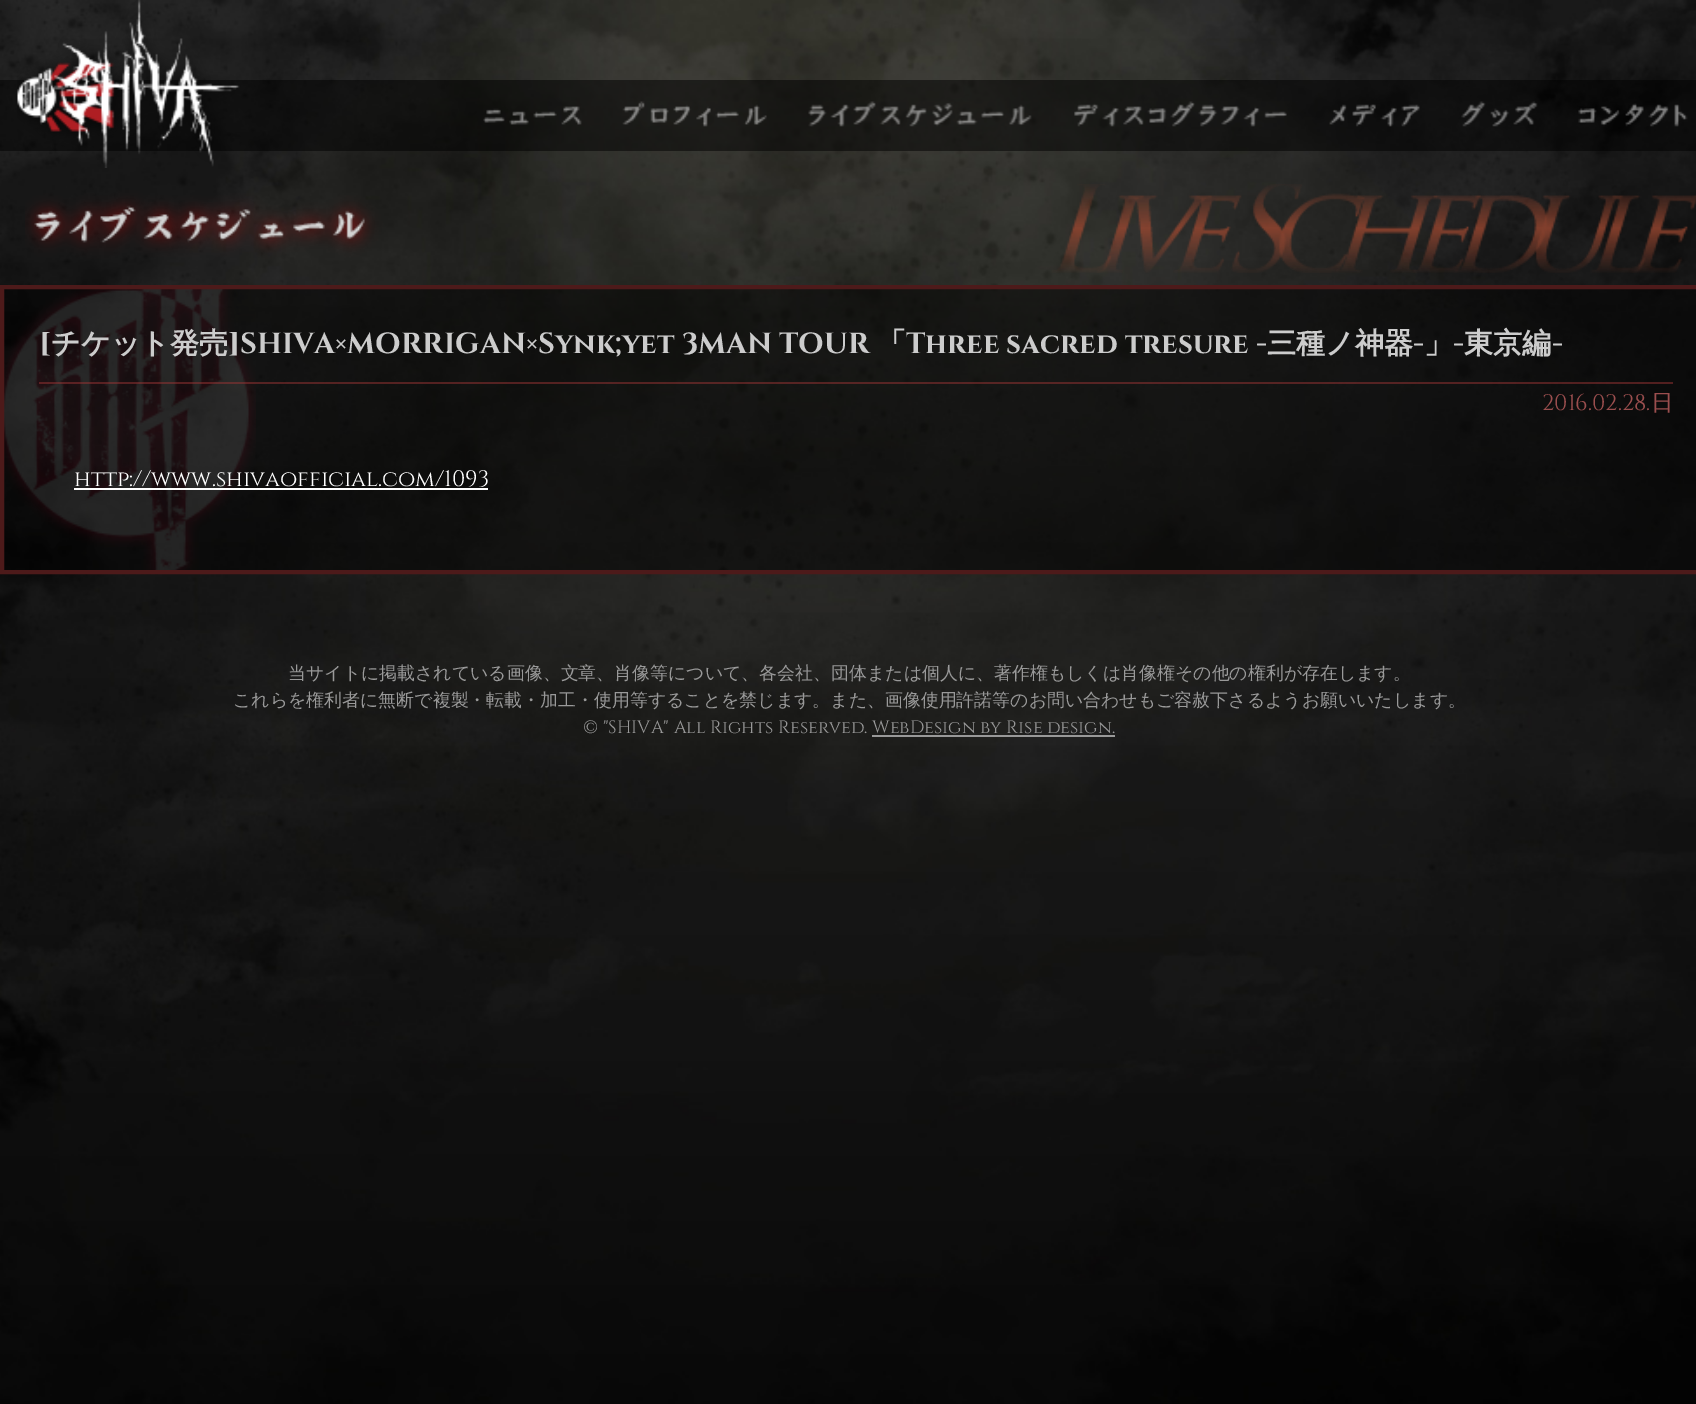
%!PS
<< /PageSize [1696 1404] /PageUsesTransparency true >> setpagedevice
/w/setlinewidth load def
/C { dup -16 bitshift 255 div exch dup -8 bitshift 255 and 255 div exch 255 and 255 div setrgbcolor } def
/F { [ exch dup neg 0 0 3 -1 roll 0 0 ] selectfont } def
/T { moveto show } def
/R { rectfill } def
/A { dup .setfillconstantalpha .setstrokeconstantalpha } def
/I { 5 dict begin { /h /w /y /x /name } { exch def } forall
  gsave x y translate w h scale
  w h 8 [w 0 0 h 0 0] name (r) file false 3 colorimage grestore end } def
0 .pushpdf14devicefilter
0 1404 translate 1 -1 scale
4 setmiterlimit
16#FFFFFF C
0 0 1696 1404 R
(1.rgb) 0 0 1696 1404 I
0.5 A
16#000000 C
0 80 1696 71 R
1 A
(2.rgb) 17 0 223 168 I
(3.rgb) 483 106 99 19 I
(4.rgb) 622 101 145 26 I
(5.rgb) 808 101 224 26 I
(6.rgb) 1074 101 213 26 I
(7.rgb) 1329 104 91 23 I
(8.rgb) 1461 101 77 26 I
(9.rgb) 1578 103 110 24 I
(10.rgb) 25 184 1671 89 I
0.5 A
4 289 1692 281 R
1 A
(11.rgb) 4 289 252 281 I
16#4D1A1A C
4 w
2 287 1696 285 rectstroke
0.5 A
16#993333 C
39 382 1634 2 R
/Cinzel-Bold 29.1 F
1 A
16#CCCCCC C
([) 39 353 T
/WenQuanYiZenHei-Bold 29.1 F
(チケット発売) 51 353 T
/Cinzel-Bold 29.1 F
(]SHIVA×MORRIGAN×Synk;yet 3MAN TOUR) 228 353 T
/WenQuanYiZenHei-Bold 29.1 F
(「) 877 353 T
/Cinzel-Bold 29.1 F
(Three sacred tresure -) 906 353 T
/WenQuanYiZenHei-Bold 29.1 F
(三種ノ神器) 1267 353 T
/Cinzel-Bold 29.1 F
(-) 1413 353 T
/WenQuanYiZenHei-Bold 29.1 F
(」) 1424 353 T
/Cinzel-Bold 29.1 F
(-) 1453 353 T
/WenQuanYiZenHei-Bold 29.1 F
(東京編) 1464 353 T
/Cinzel-Bold 29.1 F
(-) 1552 353 T
/Cinzel-Regular 22.4 F
16#9B4E4E C
(2016.02.28.) 1542 410 T
/WenQuanYiZenHei-Medium 22.4 F
(日) 1651 410 T
/Cinzel-Regular 22.4 F
16#FFFFFF C
(http://www.shivaofficial.com/1093) 74 486 T
74 488 414 2 R
/WenQuanYiZenHei-Medium 17.92 F
16#999999 C
(当サイトに掲載されている画像、文章、肖像等について、各会社、団体または個人に、著作権もしくは肖像権その他の権利が存在します。) 288 679 T
(これらを権利者に無断で複製・転載・加工・使用等することを禁じます。また、画像使用許諾等のお問い合わせもご容赦下さるようお願いいたします。) 233 706 T
/Cinzel-Regular 17.92 F
(© "SHIVA" All Rights Reserved. WebDesign by Rise design.) 583 733 T
872 735 243 2 R
.poppdf14devicefilter showpage
